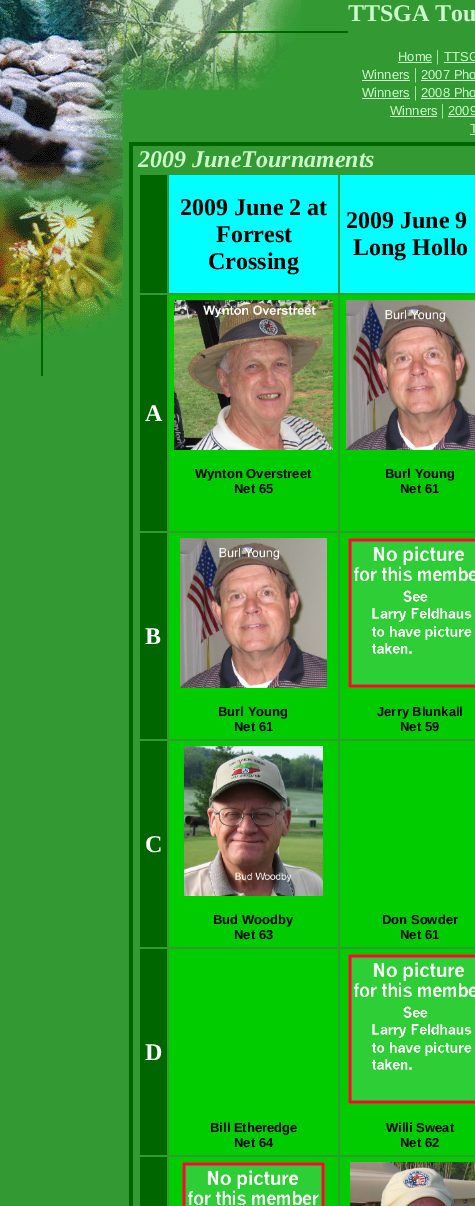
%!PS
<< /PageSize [475 1206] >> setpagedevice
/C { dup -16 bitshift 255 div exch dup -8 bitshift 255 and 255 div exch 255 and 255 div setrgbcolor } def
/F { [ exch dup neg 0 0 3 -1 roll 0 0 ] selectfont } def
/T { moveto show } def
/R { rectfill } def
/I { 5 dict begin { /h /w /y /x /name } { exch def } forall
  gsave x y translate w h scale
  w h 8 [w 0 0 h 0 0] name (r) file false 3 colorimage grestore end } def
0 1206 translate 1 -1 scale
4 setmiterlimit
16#339933 C
0 0 475 1206 R
(1.rgb) 0 0 124 90 I
(2.rgb) 0 90 124 286 I
(3.rgb) 124 0 224 90 I
/LiberationSerif-Bold 24 F
16#CCFFCC C
(TTSGA Tou) 348 21 T
/LiberationSans-Regular 13 F
(Home) 398 61 T
398 62 34 1 R
/LiberationSerif-Regular 16 F
(|) 436 61 T
/LiberationSans-Regular 13 F
(TTSG) 444 61 T
444 62 31 1 R
(Winners) 362 79 T
362 80 48 1 R
/LiberationSerif-Regular 16 F
(|) 414 79 T
/LiberationSans-Regular 13 F
(2007 Pho) 421 79 T
421 80 54 1 R
(Winners) 362 97 T
362 98 48 1 R
/LiberationSerif-Regular 16 F
(|) 414 97 T
/LiberationSans-Regular 13 F
(2008 Pho) 421 97 T
421 98 54 1 R
(Winners) 390 115 T
390 116 47 1 R
/LiberationSerif-Regular 16 F
(|) 441 115 T
/LiberationSans-Regular 13 F
(2009) 448 115 T
448 116 27 1 R
(T) 470 133 T
470 134 5 1 R
16#006600 C
129 142 346 4 R
129 146 4 1060 R
/LiberationSerif-BoldItalic 24 F
16#CCFFCC C
(2009 JuneTournaments) 138 167 T
16#006600 C
140 175 27 118 R
16#00FFFF C
169 175 169 118 R
/LiberationSerif-Bold 24 F
16#000000 C
(2009 June 2 at) 180 215 T
(Forrest) 216 242 T
(Crossing) 208 269 T
16#00FFFF C
340 175 135 118 R
16#000000 C
(2009 June 9) 346 228 T
(Long Hollo) 353 255 T
16#006600 C
140 295 27 236 R
16#FFFFFF C
(A) 145 421 T
16#00CC00 C
169 295 169 236 R
(4.rgb) 174 300 159 150 I
/LiberationSans-Bold 13 F
16#000000 C
(Wynton Overstreet) 195 478 T
(Net 65) 234 493 T
16#00CC00 C
340 295 135 236 R
(5.rgb) 346 300 129 150 I
16#000000 C
(Burl Young) 385 478 T
(Net 61) 400 493 T
16#006600 C
140 533 27 206 R
/LiberationSerif-Bold 24 F
16#FFFFFF C
(B) 145 644 T
16#00CC00 C
169 533 169 206 R
(6.rgb) 180 538 147 150 I
/LiberationSans-Bold 13 F
16#000000 C
(Burl Young) 218 716 T
(Net 61) 234 731 T
16#00CC00 C
340 533 135 206 R
(7.rgb) 348 538 127 150 I
16#000000 C
(Jerry Blunkall) 377 716 T
(Net 59) 400 731 T
16#006600 C
140 741 27 206 R
/LiberationSerif-Bold 24 F
16#FFFFFF C
(C) 145 852 T
16#00CC00 C
169 741 169 206 R
(8.rgb) 184 746 139 150 I
/LiberationSans-Bold 13 F
16#000000 C
(Bud Woodby) 213 924 T
(Net 63) 234 939 T
16#00CC00 C
340 741 135 206 R
16#000000 C
(Don Sowder) 382 924 T
(Net 61) 400 939 T
16#006600 C
140 949 27 206 R
/LiberationSerif-Bold 24 F
16#FFFFFF C
(D) 145 1060 T
16#00CC00 C
169 949 169 206 R
/LiberationSans-Bold 13 F
16#000000 C
(Bill Etheredge) 210 1132 T
(Net 64) 234 1147 T
16#00CC00 C
340 949 135 206 R
(7.rgb) 348 954 127 150 I
16#000000 C
(Willi Sweat) 386 1132 T
(Net 62) 400 1147 T
16#006600 C
140 1157 27 49 R
16#00CC00 C
169 1157 169 49 R
(9.rgb) 182 1162 143 44 I
340 1157 135 49 R
(10.rgb) 350 1162 125 44 I
showpage
